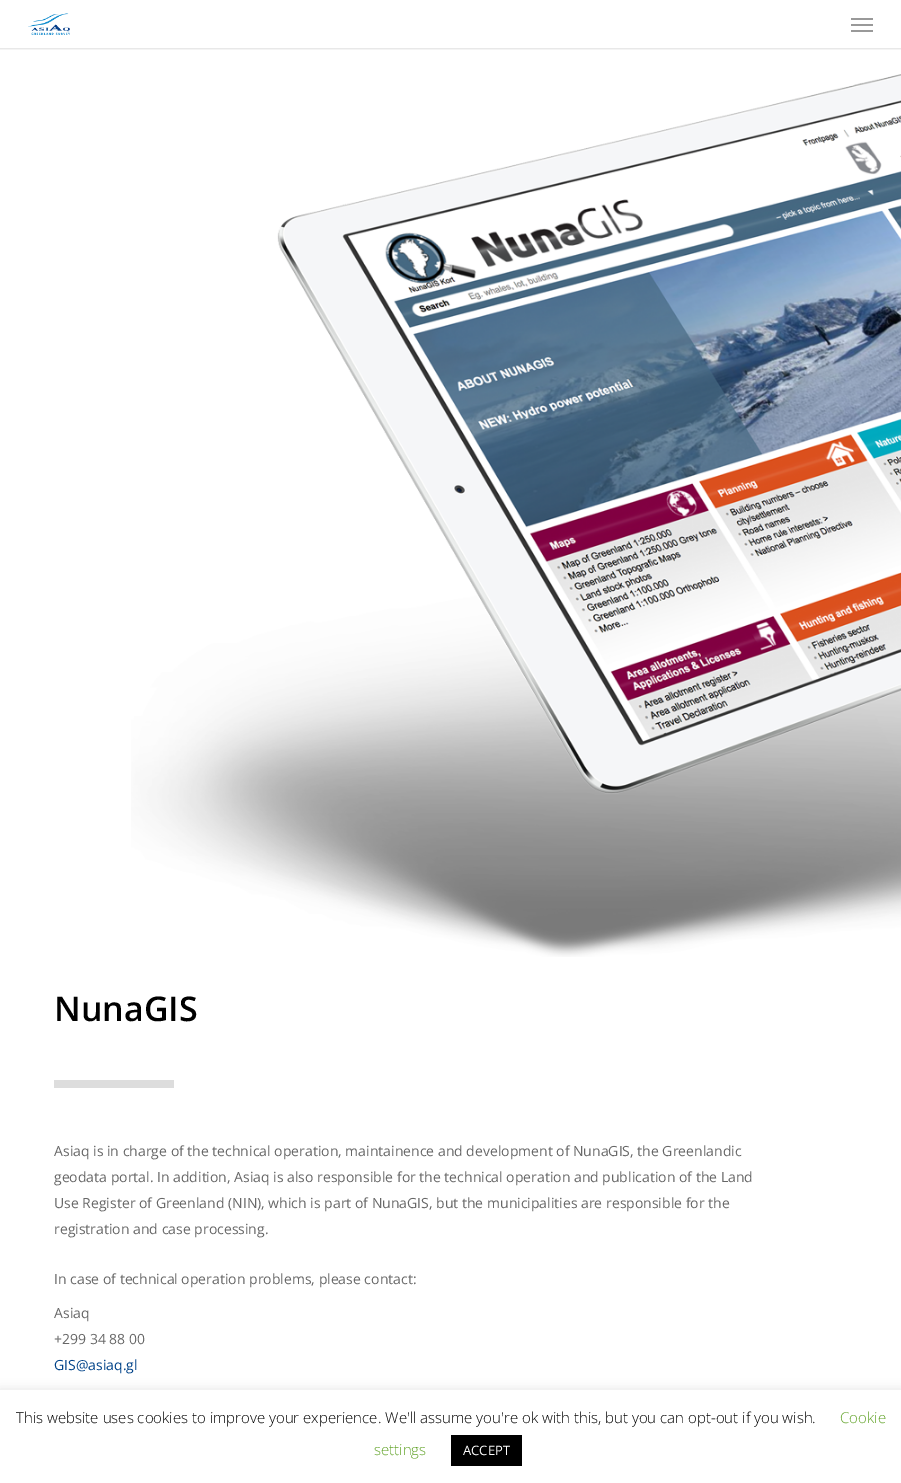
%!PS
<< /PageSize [901 1483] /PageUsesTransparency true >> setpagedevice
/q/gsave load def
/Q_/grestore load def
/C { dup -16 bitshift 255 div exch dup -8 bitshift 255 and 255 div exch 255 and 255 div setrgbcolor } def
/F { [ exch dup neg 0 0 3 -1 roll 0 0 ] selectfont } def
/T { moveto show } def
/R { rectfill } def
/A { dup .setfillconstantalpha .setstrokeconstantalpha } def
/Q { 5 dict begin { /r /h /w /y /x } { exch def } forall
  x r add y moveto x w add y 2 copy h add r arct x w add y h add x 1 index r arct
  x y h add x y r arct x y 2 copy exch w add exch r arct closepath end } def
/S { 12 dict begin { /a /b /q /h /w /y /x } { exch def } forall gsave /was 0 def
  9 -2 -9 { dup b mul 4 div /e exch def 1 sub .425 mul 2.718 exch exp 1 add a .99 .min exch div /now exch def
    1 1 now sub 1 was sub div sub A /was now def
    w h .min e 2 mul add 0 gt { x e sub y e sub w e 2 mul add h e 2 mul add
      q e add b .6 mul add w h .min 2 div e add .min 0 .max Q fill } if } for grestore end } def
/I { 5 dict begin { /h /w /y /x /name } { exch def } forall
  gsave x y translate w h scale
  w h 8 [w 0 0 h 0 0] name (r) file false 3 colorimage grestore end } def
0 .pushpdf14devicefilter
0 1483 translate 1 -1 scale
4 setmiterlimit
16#FFFFFF C
0 0 901 1483 R
q
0 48 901 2 rectclip
16#000000 C
0 0 901 48 0 1.5 .22 S
Q_
(1.rgb) 28 13 42 22 I
16#999999 C
851 18 22 2 R
851 30 22 2 R
851 24 22 2 R
(2.rgb) 131 74 770 883 I
/OpenSans-SemiBold 34 F
16#000000 C
(NunaGIS) 54 1021 T
16#DDDDDD C
54 1080 120 8 R
/OpenSans-Regular 14 F
16#676767 C
(Asiaq is in charge of the technical operation, maintainence and development of NunaGIS, the Greenlandic) 54 1156 T
(geodata portal. In addition, Asiaq is also responsible for the technical operation and publication of the Land) 54 1182 T
(Use Register of Greenland \(NIN\), which is part of NunaGIS, but the municipalities are responsible for the) 54 1208 T
(registration and case processing.) 54 1234 T
(In case of technical operation problems, please contact:) 54 1284 T
(Asiaq) 54 1318 T
(+299 34 88 00) 54 1344 T
16#004288 C
(GIS@asiaq.gl) 54 1370 T
16#ACABAB C
0 1389 901 93 0 5 .3 S
16#FFFFFF C
0 1390 901 93 R
/OpenSans-Light 15 F
16#000000 C
(This website uses cookies to improve your experience. We'll assume you're ok with this, but you can opt-out if you wish.) 16 1423 T
16#62A329 C
(Cookie) 840 1423 T
(settings) 374 1455 T
16#000000 C
451 1435 71 31 R
/OpenSans-Regular 13 F
16#FFFFFF C
(ACCEPT) 463 1455 T
.poppdf14devicefilter showpage
